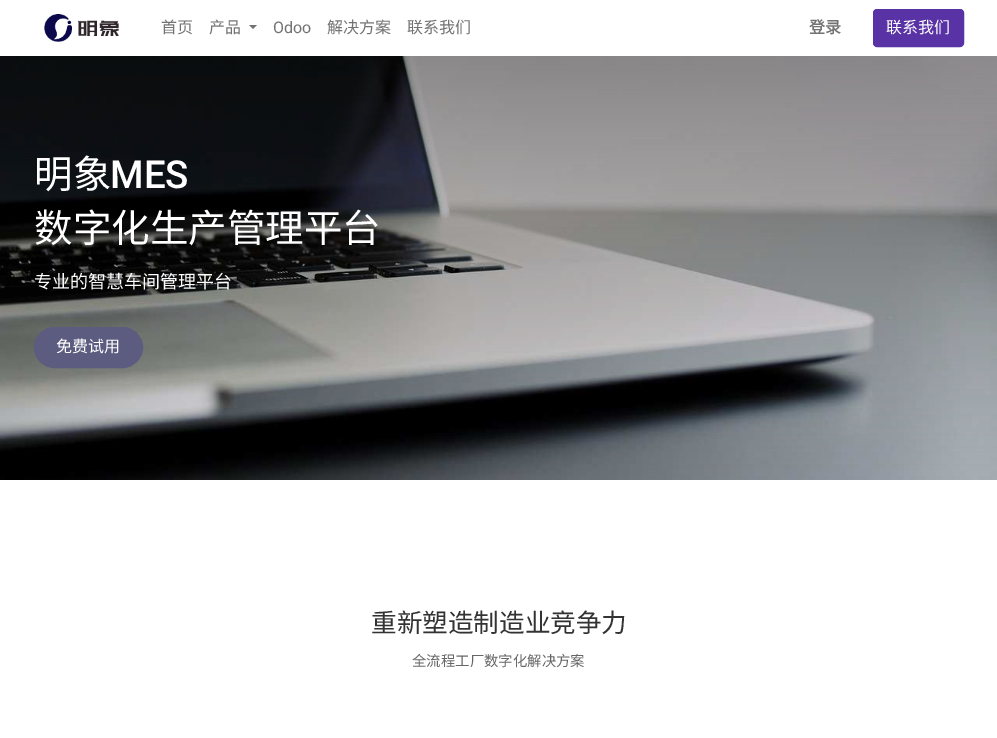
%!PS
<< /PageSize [997 738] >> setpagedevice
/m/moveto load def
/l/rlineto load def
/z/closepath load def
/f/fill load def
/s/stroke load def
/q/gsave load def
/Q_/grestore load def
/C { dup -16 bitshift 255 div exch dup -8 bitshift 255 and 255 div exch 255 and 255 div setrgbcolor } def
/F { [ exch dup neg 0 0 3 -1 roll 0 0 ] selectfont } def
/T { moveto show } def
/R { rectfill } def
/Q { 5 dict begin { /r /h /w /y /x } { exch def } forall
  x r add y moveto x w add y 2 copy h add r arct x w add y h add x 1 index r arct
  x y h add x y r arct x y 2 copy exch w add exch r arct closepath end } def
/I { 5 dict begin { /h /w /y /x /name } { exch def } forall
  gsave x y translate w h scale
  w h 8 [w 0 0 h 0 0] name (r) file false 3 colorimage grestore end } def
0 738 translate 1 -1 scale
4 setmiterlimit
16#FFFFFF C
0 0 997 738 R
(1.rgb) 44 14 75 28 I
/NotoSansCJKSC-Regular 16 F
16#737373 C
(首页) 161 33 T
(产品) 209 33 T
249 25 m 8 0 l -4 4 l z f
/Roboto-Regular 16 F
(Odoo) 273 33 T
/NotoSansCJKSC-Regular 16 F
(解决方案) 327 33 T
(联系我们) 407 33 T
/NotoSansCJKSC-Bold 16 F
(登录) 809 33 T
16#5932A5 C
873.5 9.5 90 37 3.5 Q q f Q_
s
/NotoSansCJKSC-Regular 16 F
16#FFFFFF C
(联系我们) 886 33 T
(2.rgb) 0 56 997 424 I
/NotoSansCJKSC-Regular 38.5 F
(明象) 34 188 T
/Roboto-Medium 38.5 F
(MES) 110 188 T
/NotoSansCJKSC-Regular 38.5 F
(数字化生产管理平台) 34 242 T
/NotoSansCJKSC-Regular 18 F
(专业的智慧车间管理平台) 34 288 T
16#5C5B80 C
34.5 327.5 108 40 20 Q q f Q_
s
/NotoSansCJKSC-Regular 16 F
16#FFFFFF C
(免费试用) 56 352 T
/NotoSansCJKSC-Regular 25.6 F
16#333333 C
(重新塑造制造业竞争力) 371 632 T
/NotoSansCJKSC-Regular 14.4 F
16#666666 C
(全流程工厂数字化解决方案) 412 666 T
showpage
